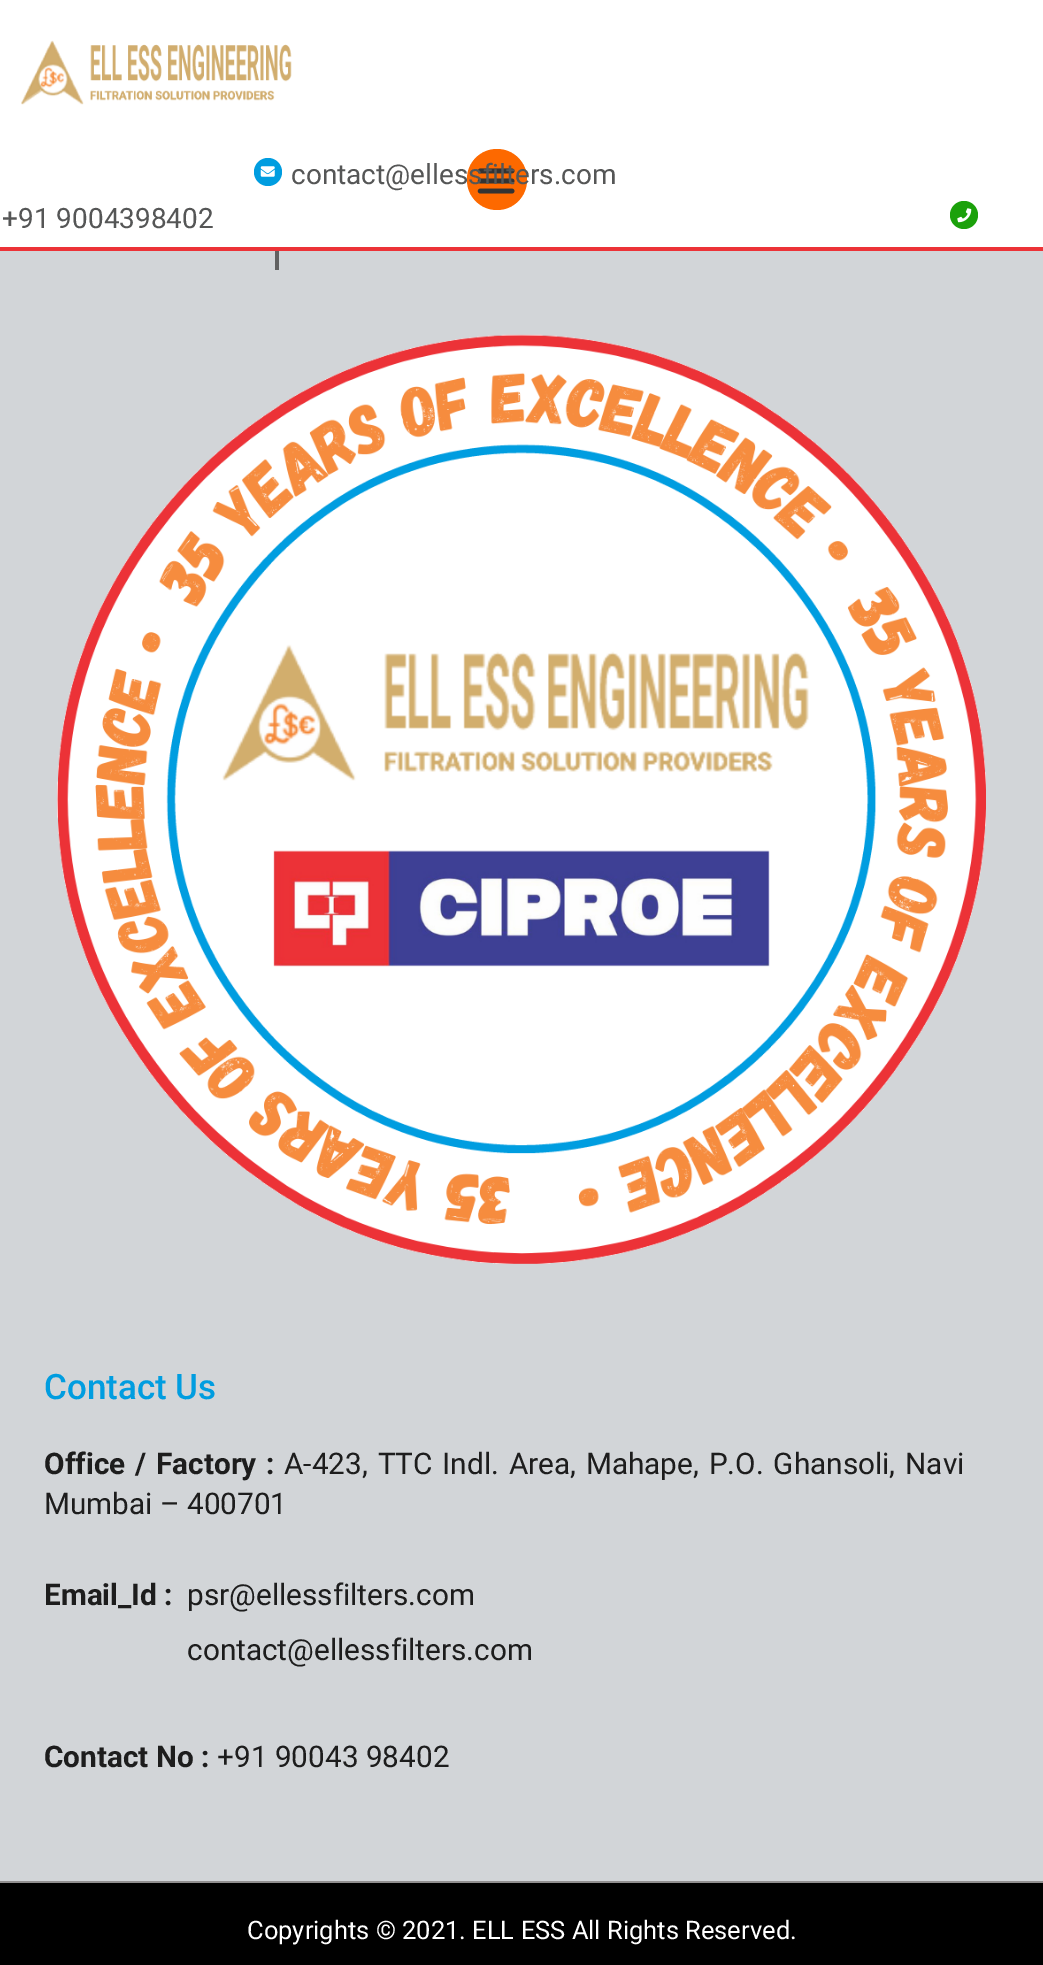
%!PS
<< /PageSize [1043 1965] >> setpagedevice
/m/moveto load def
/f/fill load def
/C { dup -16 bitshift 255 div exch dup -8 bitshift 255 and 255 div exch 255 and 255 div setrgbcolor } def
/F { [ exch dup neg 0 0 3 -1 roll 0 0 ] selectfont } def
/T { moveto show } def
/R { rectfill } def
/O { newpath 0 360 arc closepath } def
/Q { 5 dict begin { /r /h /w /y /x } { exch def } forall
  x r add y moveto x w add y 2 copy h add r arct x w add y h add x 1 index r arct
  x y h add x y r arct x y 2 copy exch w add exch r arct closepath end } def
/I { 5 dict begin { /h /w /y /x /name } { exch def } forall
  gsave x y translate w h scale
  w h 8 [w 0 0 h 0 0] name (r) file false 3 colorimage grestore end } def
0 1965 translate 1 -1 scale
4 setmiterlimit
16#D2D5D8 C
0 0 1043 1965 R
16#FFFFFF C
0 0 1043 247 R
16#EC3237 C
0 247 1043 4 R
(1.rgb) 21 40 271 65 I
16#FD6900 C
467 149 60 61 30 Q f
(2.rgb) 477 168 38 26 I
16#009DE0 C
268 172 14 O f
(3.rgb) 260 166 15 11 I
/Roboto-Regular 28 F
16#555656 C
(contact@ellessfilters.com) 291 184 T
(+91 9004398402) 2 228 T
16#1BA10B C
964 215 14 O f
(4.rgb) 957 208 15 15 I
16#616161 C
275 251 4 19 R
(5.rgb) 57 334 929 930 I
/Roboto-Medium 35 F
16#009DE0 C
(Contact Us) 44 1399 T
/Roboto-Bold 29.75 F
16#1D1D1D C
44 1474 m 2.5 0 32 (Office /) widthshow
156 1474 m 2.5 0 32 (Factory :) widthshow
/Roboto-Regular 29.75 F
284 1474 m 2.5 0 32 (A-423, TTC Indl. Area, Mahape, P.O. Ghansoli, Navi) widthshow
(Mumbai – 400701) 44 1514 T
/Roboto-Bold 29.75 F
(Email_Id :) 44 1605 T
/Roboto-Regular 29.75 F
(psr@ellessfilters.com) 187 1605 T
(contact@ellessfilters.com) 187 1660 T
/Roboto-Bold 29.75 F
(Contact No :) 44 1767 T
/Roboto-Regular 29.75 F
(+91 90043 98402) 217 1767 T
16#000000 C
0 1883 1043 82 R
16#929090 C
0 1881 1043 2 R
/Roboto-Regular 25.5 F
16#FFFFFF C
(Copyrights © 2021. ELL ESS All Rights Reserved.) 247 1939 T
showpage
